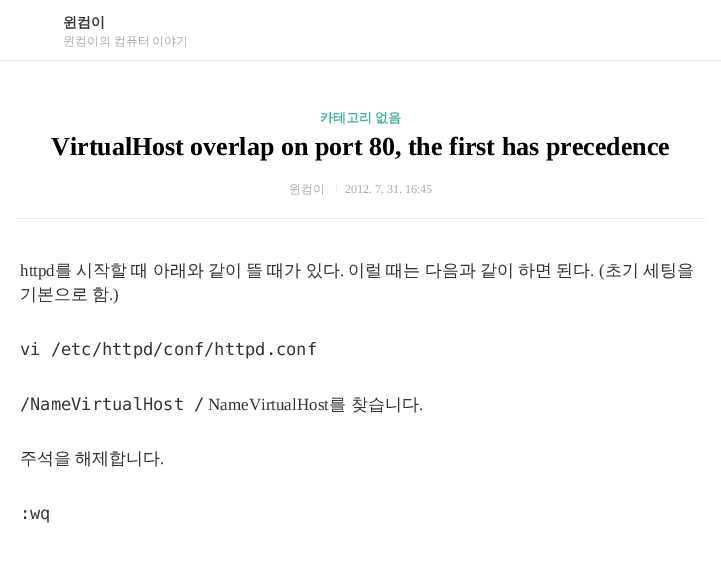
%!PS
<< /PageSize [721 565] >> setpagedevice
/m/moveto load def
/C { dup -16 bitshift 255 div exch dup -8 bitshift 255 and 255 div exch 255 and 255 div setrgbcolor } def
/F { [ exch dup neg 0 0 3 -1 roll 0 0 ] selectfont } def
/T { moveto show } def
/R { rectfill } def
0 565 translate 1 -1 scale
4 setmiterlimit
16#FFFFFF C
0 0 721 565 R
16#EBEBEB C
0 60 721 1 R
/WenQuanYiZenHei-Bold 14 F
16#333333 C
(윈컴이) 63 27 T
/WenQuanYiZenHei-Medium 12 F
16#AAAAAA C
63 45 m -1 0 32 (윈컴이의 컴퓨터 이야기) widthshow
16#EBEBEB C
15 218 691 1 R
/WenQuanYiZenHei-Bold 13 F
16#3DB39E C
320 122 m -1 0 32 (카테고리 없음) widthshow
/LiberationSerif-Bold 26 F
16#000000 C
(VirtualHost overlap on port 80, the first has precedence) 51 155 T
/WenQuanYiZenHei-Medium 12 F
16#AAAAAA C
(윈컴이) 289 193 T
16#EBEBEB C
336 184 1 9 R
/LiberationSerif-Regular 12 F
16#AAAAAA C
(2012. 7. 31. 16:45) 345 193 T
/LiberationSerif-Regular 17 F
16#333333 C
(httpd) 20 276 T
/WenQuanYiZenHei-Medium 17 F
(를) 55 276 T
(시작할) 76 276 T
(때) 131 276 T
(아래와) 153 276 T
(같이) 208 276 T
(뜰) 246 276 T
(때가) 267 276 T
(있다) 306 276 T
/LiberationSerif-Regular 17 F
(.) 340 276 T
/WenQuanYiZenHei-Medium 17 F
(이럴) 348 276 T
(때는) 386 276 T
(다음과) 425 276 T
(같이) 480 276 T
(하면) 518 276 T
(된다) 556 276 T
/LiberationSerif-Regular 17 F
(. \() 590 276 T
/WenQuanYiZenHei-Medium 17 F
(초기) 605 276 T
(세팅을) 643 276 T
20 300 m -1 0 32 (기본으로 함) widthshow
/LiberationSerif-Regular 17 F
(.\)) 109 300 T
/DejaVuSansMono-Regular 17 F
(vi /etc/httpd/conf/httpd.conf) 20 355 T
(/NameVirtualHost /) 20 410 T
/LiberationSerif-Regular 17 F
(NameVirtualHost) 208 410 T
/WenQuanYiZenHei-Medium 17 F
(를 찾습니다) 329 410 T
/LiberationSerif-Regular 17 F
(.) 419 410 T
/WenQuanYiZenHei-Medium 17 F
20 464 m -1 0 32 (주석을 해제합니다) widthshow
/LiberationSerif-Regular 17 F
(.) 160 464 T
/DejaVuSansMono-Regular 17 F
(:wq) 20 519 T
showpage
